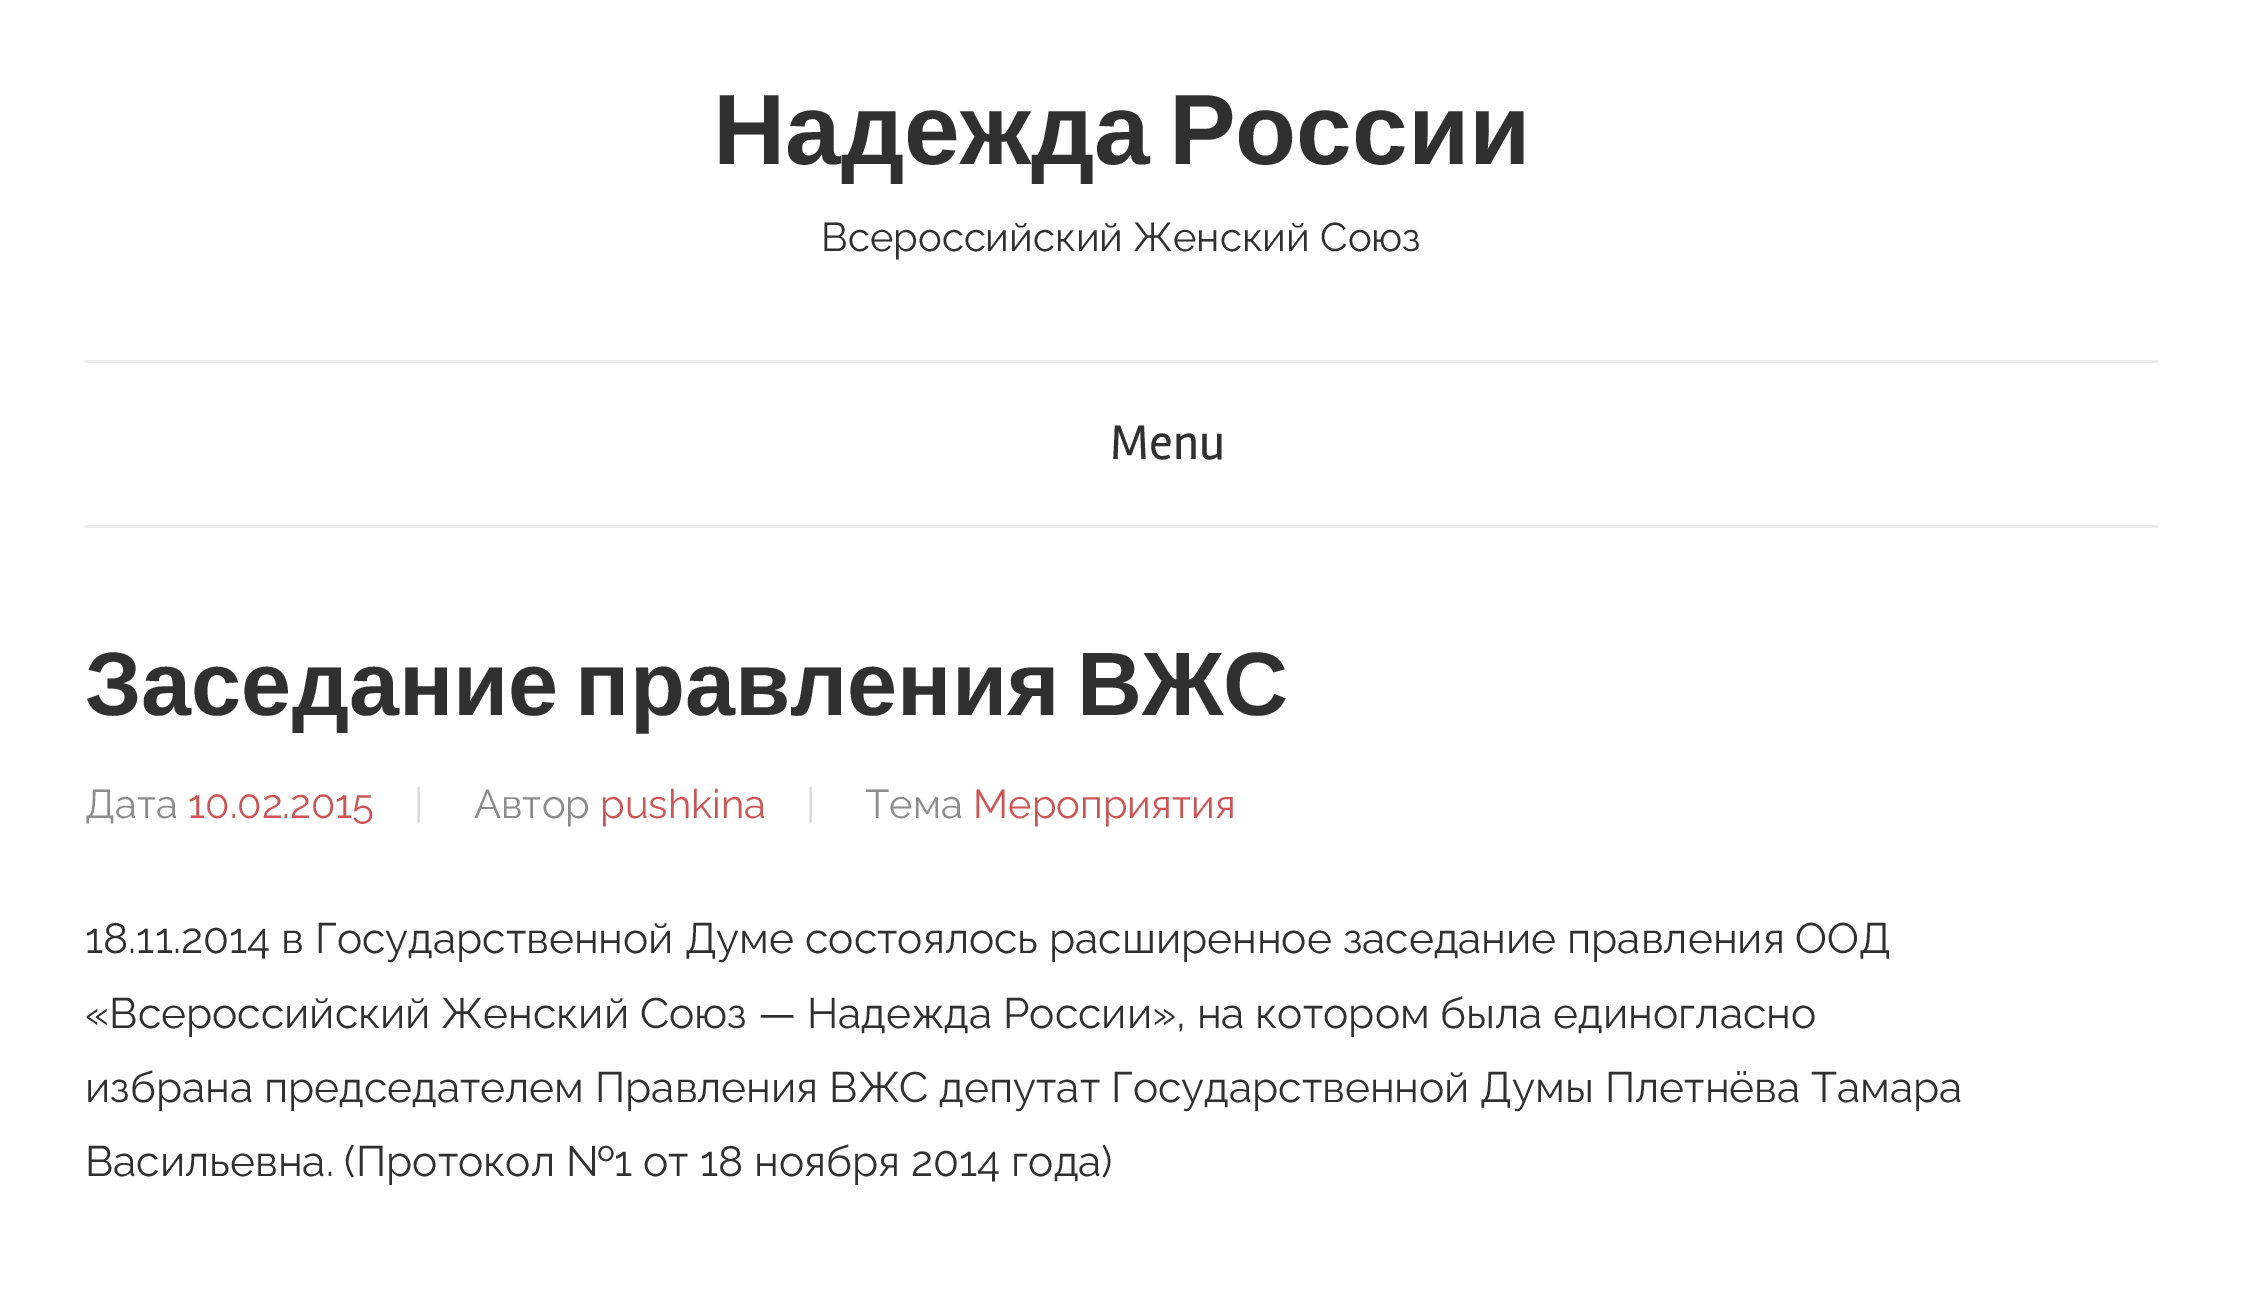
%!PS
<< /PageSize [2242 1289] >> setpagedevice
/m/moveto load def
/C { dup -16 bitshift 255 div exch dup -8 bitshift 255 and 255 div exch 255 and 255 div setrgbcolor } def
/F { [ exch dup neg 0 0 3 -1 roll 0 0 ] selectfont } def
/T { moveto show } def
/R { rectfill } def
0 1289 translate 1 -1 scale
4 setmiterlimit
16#FFFFFF C
0 0 2242 1289 R
16#ECECEC C
85 525 2073 3 R
/LiberationSans-Bold 100 F
16#303030 C
713 164 m -9 0 32 (Надежда России) widthshow
/Raleway-Regular 40 F
(Всероссийский Женский Союз) 821 251 T
16#ECECEC C
85 360 2073 3 R
/Rambla-Regular 50 F
16#303030 C
(Menu) 1110 459 T
/LiberationSans-Bold 90 F
85 715 m -8 0 32 (Заседание правления ВЖС) widthshow
/Raleway-Regular 40 F
16#8C8C8C C
(Дата) 85 818 T
16#CC5555 C
(10.02.2015) 188 818 T
16#D9D9D9 C
(|) 414 818 T
16#8C8C8C C
(Автор) 474 818 T
16#CC5555 C
(pushkina) 600 818 T
16#D9D9D9 C
(|) 806 818 T
16#8C8C8C C
(Тема) 865 818 T
16#CC5555 C
(Мероприятия) 973 818 T
/Raleway-Regular 42.5 F
16#303030 C
(18.11.2014 в Государственной Думе состоялось расширенное заседание правления ООД) 85 953 T
(«Всероссийский Женский Союз — Надежда России», на котором была единогласно) 85 1028 T
(избрана председателем Правления ВЖС депутат Государственной Думы Плетнёва Тамара) 85 1102 T
(Васильевна. \(Протокол №1 от 18 ноября 2014 года\)) 85 1176 T
showpage
